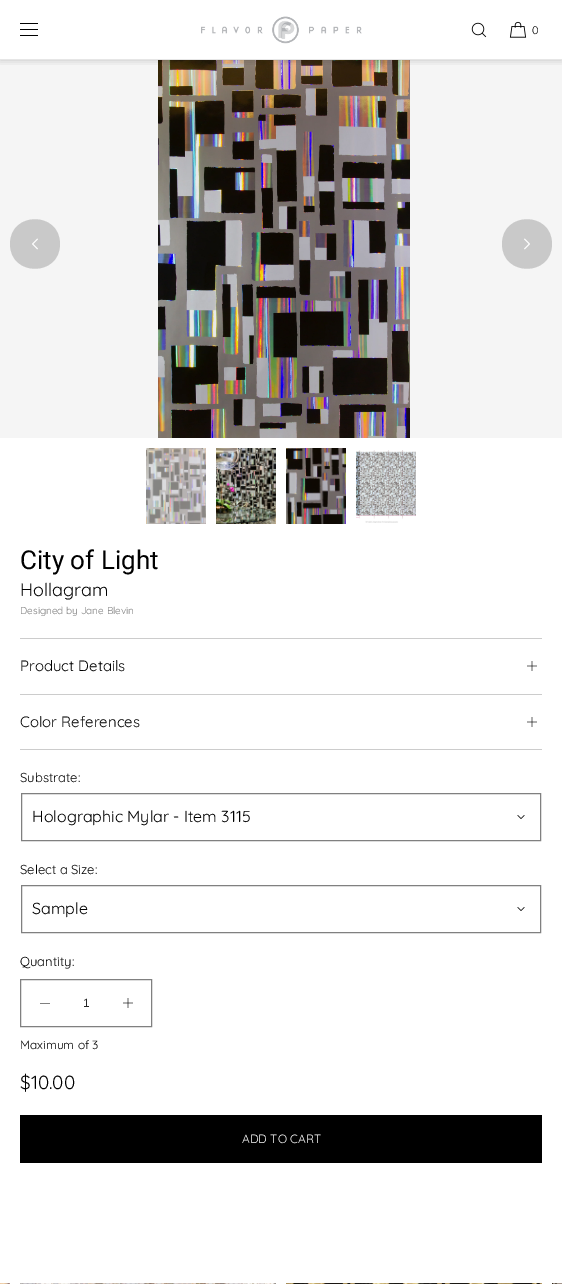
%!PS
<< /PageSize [562 1284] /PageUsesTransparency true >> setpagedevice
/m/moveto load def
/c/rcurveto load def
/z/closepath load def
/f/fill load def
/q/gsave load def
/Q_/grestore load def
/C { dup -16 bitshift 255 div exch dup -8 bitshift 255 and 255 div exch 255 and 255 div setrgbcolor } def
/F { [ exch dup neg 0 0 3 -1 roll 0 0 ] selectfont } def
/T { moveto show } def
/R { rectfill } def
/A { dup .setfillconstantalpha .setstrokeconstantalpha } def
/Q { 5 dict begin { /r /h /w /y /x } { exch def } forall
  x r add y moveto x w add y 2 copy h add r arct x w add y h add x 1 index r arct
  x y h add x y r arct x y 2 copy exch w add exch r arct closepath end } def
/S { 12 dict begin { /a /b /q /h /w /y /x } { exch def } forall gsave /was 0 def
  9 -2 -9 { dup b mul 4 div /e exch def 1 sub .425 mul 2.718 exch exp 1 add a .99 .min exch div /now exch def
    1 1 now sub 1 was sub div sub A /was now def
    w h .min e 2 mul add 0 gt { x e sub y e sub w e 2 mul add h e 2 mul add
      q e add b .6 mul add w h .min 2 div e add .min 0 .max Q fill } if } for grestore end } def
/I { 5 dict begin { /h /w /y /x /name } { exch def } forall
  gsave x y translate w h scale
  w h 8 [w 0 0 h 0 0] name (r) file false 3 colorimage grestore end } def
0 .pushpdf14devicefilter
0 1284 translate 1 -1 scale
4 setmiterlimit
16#FFFFFF C
0 0 562 1284 R
16#F5F5F5 C
0 60 562 378 R
(4.rgb) 158 60 252 378 I
q
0 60 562 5 rectclip
16#000000 C
0 0 562 60 0 4 .2 S
Q_
16#E6E6E6 C
0 59 562 1 R
16#000000 C
20 23 18 1 R
20 29 18 1 R
20 35 18 1 R
(1.rgb) 201 16 161 28 I
(2.rgb) 471 22 16 16 I
(3.rgb) 509 21 18 17 I
/Quicksand-Regular 11 F
(0) 532 34 T
16#C9C9C9 C
60 244 m 0 33 -50 33 -50 0 c 0 -33 50 -33 50 0 c z f
(5.rgb) 32 238 6 12 I
502 244 m 0 -33 50 -33 50 0 c 0 33 -50 33 -50 0 c z f
(6.rgb) 524 238 6 12 I
(7.rgb) 146 448 60 76 I
(8.rgb) 216 448 60 76 I
(9.rgb) 286 448 60 76 I
(10.rgb) 356 450 60 73 I
/Roboto-Regular 26 F
16#000000 C
(City of Light) 20 569 T
/Quicksand-Regular 18 F
(Hollagram) 20 596 T
/Quicksand-Regular 10 F
16#808080 C
(Designed by Jane Blevin) 20 614 T
16#CCCCCC C
20 638 522 1 R
/Quicksand-Regular 15 F
16#000000 C
(Product Details) 20 671 T
(11.rgb) 527 661 10 10 I
16#CCCCCC C
20 694 522 1 R
16#000000 C
(Color References) 20 727 T
(11.rgb) 527 717 10 10 I
16#CCCCCC C
20 749 522 1 R
/Quicksand-Regular 13 F
16#000000 C
(Substrate:) 20 782 T
16#808080 C
21.5 793.5 519 47 rectstroke
/Quicksand-Regular 16 F
16#000000 C
(Holographic Mylar - Item 3115) 32 822 T
(12.rgb) 517 815 8 4 I
/Quicksand-Regular 13 F
(Select a Size:) 20 874 T
16#808080 C
21.5 885.5 519 47 rectstroke
/Quicksand-Regular 16 F
16#000000 C
(Sample) 32 914 T
(12.rgb) 517 907 8 4 I
/Quicksand-Regular 13 F
(Quantity:) 20 966 T
16#808080 C
20.5 979.5 131 47 rectstroke
40 1003 10 1 R
/LiberationSans-Regular 12 F
16#262626 C
(1) 83 1007 T
(11.rgb) 123 998 10 10 I
/Quicksand-Regular 12 F
16#000000 C
(Maximum of 3) 20 1049 T
/Quicksand-Regular 19 F
($10.00) 20 1089 T
20 1115 522 48 R
/Quicksand-Regular 12 F
16#FFFFFF C
(ADD TO CART) 242 1143 T
(13.rgb) 0 1283 10 1 I
(14.rgb) 20 1283 256 1 I
(15.rgb) 286 1283 256 1 I
(16.rgb) 552 1283 10 1 I
.poppdf14devicefilter showpage
